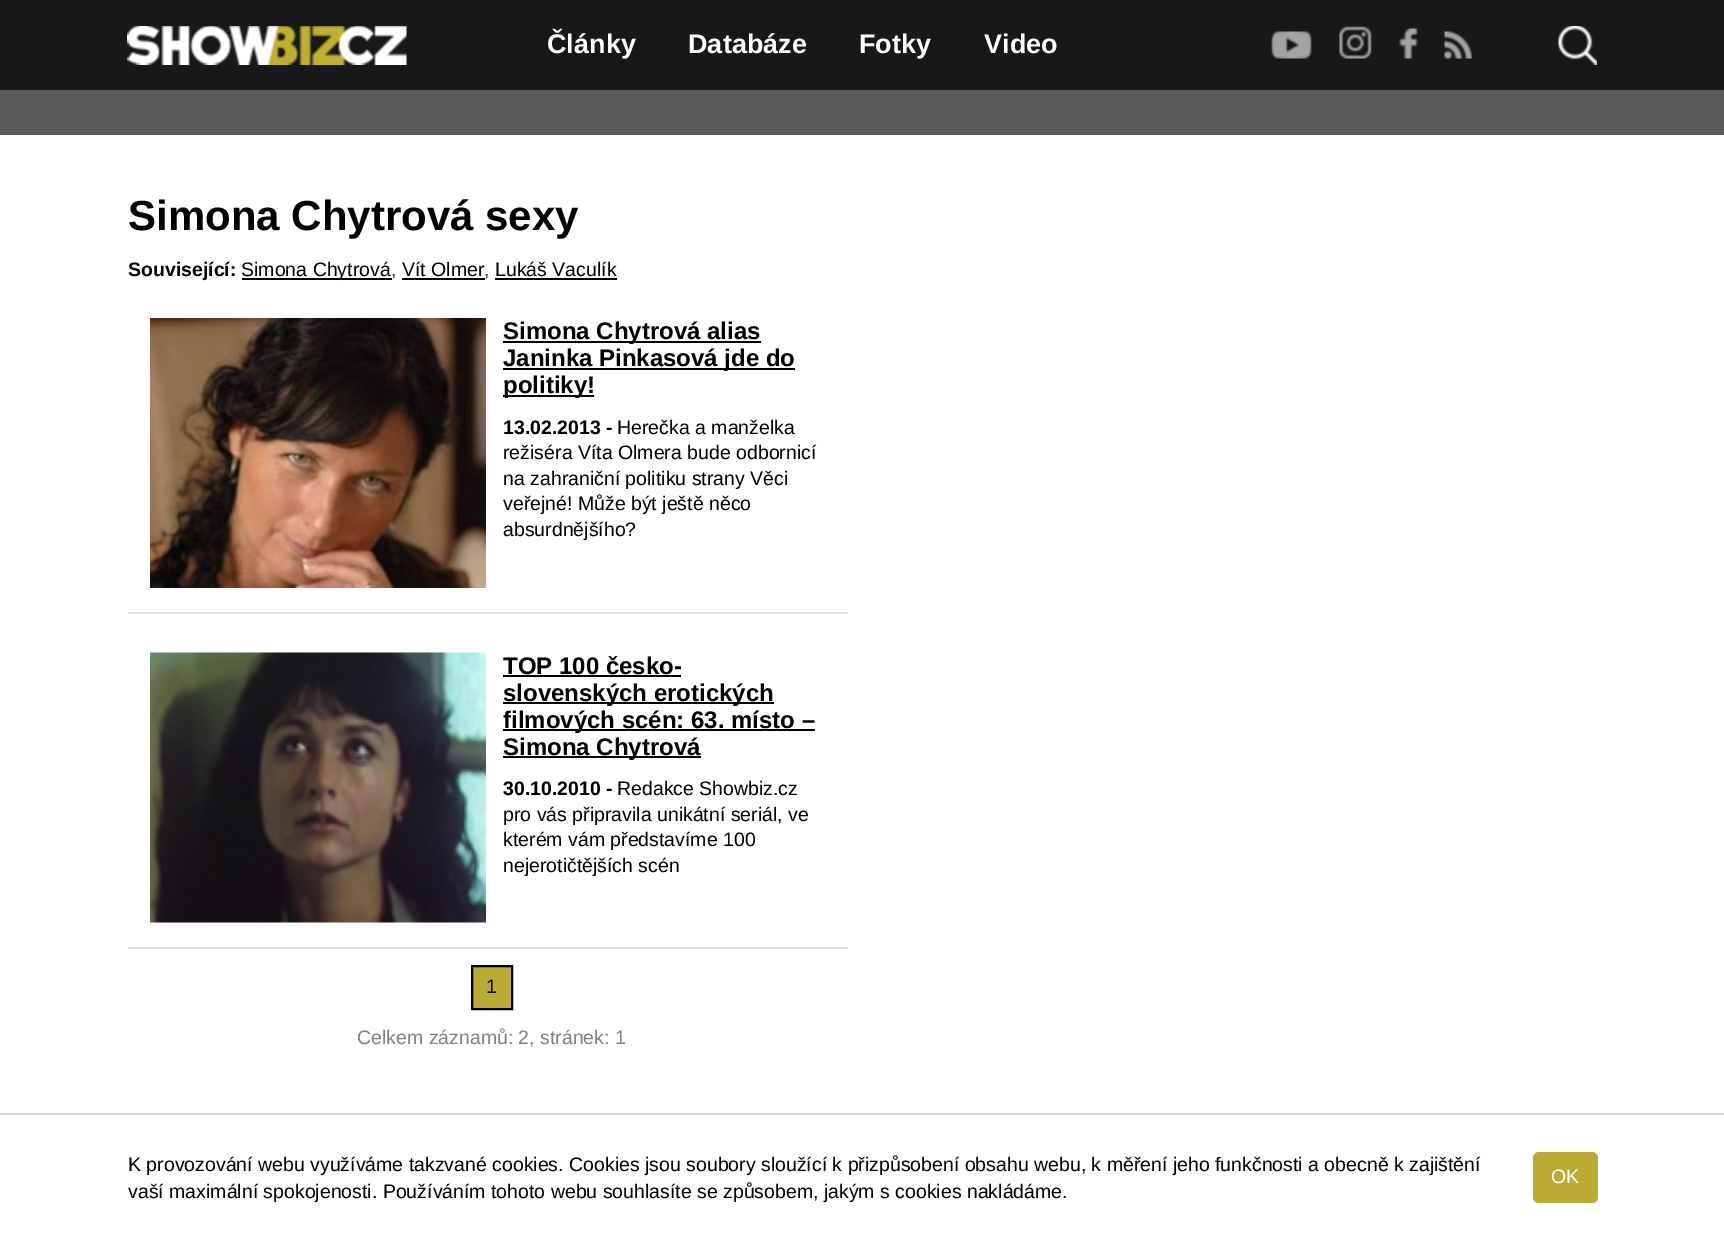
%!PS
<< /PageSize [1724 1243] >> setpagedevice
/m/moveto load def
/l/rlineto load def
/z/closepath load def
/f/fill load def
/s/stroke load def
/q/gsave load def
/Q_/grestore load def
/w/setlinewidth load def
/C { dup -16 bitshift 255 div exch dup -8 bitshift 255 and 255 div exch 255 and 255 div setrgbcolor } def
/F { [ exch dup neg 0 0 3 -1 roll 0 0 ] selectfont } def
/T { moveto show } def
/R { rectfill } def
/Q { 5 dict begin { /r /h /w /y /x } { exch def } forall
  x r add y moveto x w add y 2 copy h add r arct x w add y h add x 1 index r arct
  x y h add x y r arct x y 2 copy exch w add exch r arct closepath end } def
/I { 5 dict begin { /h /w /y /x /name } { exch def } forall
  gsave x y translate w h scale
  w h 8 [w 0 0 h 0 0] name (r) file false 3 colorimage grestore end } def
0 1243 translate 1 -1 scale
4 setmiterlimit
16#FFFFFF C
0 0 1724 1243 R
16#181818 C
0 0 1724 90 R
(1.rgb) 127 26 280 39 I
/LiberationSans-Bold 27 F
16#FFFFFF C
(Články) 547 53 T
(Databáze) 688 53 T
(Fotky) 859 53 T
(Video) 984 53 T
(2.rgb) 1271 31 41 28 I
(3.rgb) 1339 26 33 33 I
(4.rgb) 1399 28 19 31 I
(5.rgb) 1444 31 28 28 I
(6.rgb) 1558 26 39 39 I
16#5A5A5A C
0 90 1724 45 R
/LiberationSans-Bold 42 F
16#000000 C
(Simona Chytrová sexy) 128 230 T
/LiberationSans-Bold 19.5 F
(Související:) 128 276 T
242 278 150 2 R
/LiberationSans-Regular 19.5 F
(Simona Chytrová) 241 276 T
16#3B3F45 C
(,) 391 276 T
16#000000 C
(Vít Olmer) 402 276 T
402 278 83 2 R
16#3B3F45 C
(,) 484 276 T
16#000000 C
(Lukáš Vaculík) 495 276 T
495 278 122 2 R
16#DFDFDF C
128 612 720 2 R
(7.rgb) 150 318 336 270 I
16#000000 C
503 341 258 2 R
/LiberationSans-Bold 24 F
(Simona Chytrová alias) 503 339 T
503 368 292 2 R
(Janinka Pinkasová jde do) 503 366 T
503 395 91 2 R
(politiky!) 503 393 T
/LiberationSans-Bold 19.5 F
(13.02.2013 -) 503 434 T
/LiberationSans-Regular 19.5 F
(Herečka a manželka) 617 434 T
(režiséra Víta Olmera bude odbornicí) 503 459 T
(na zahraniční politiku strany Věci) 503 485 T
(veřejné! Může být ještě něco) 503 510 T
(absurdnějšího?) 503 536 T
16#DFDFDF C
128 947 720 2 R
(8.rgb) 150 652 336 271 I
/LiberationSans-Bold 24 F
16#000000 C
(TOP 100 česko-) 503 674 T
503 675 178 2 R
503 702 271 2 R
(slovenských erotických) 503 701 T
503 729 312 2 R
(filmových scén: 63. místo –) 503 728 T
503 756 198 2 R
(Simona Chytrová) 503 755 T
/LiberationSans-Bold 19.5 F
(30.10.2010 -) 503 795 T
/LiberationSans-Regular 19.5 F
(Redakce Showbiz.cz) 617 795 T
(pro vás připravila unikátní seriál, ve) 503 821 T
(kterém vám představíme 100) 503 846 T
(nejerotičtějších scén) 503 872 T
16#BAAB33 C
472 966 m 40 0 l 0 43 l -40 0 l z q f Q_
16#000000 C
2 w
s
(1) 486 993 T
16#808080 C
(Celkem záznamů: 2, stránek: 1) 357 1044 T
16#D2D2D2 C
0 1113 1724 2 R
16#000000 C
(K provozování webu využíváme takzvané cookies. Cookies jsou soubory sloužící k přizpůsobení obsahu webu, k měření jeho funkčnosti a obecně k zajištění) 128 1171 T
16#BAAB33 C
1533 1152 65 51 6 Q f
16#FFFFFF C
(OK) 1551 1183 T
16#000000 C
(vaší maximální spokojenosti. Používáním tohoto webu souhlasíte se způsobem, jakým s cookies nakládáme.) 128 1198 T
showpage
